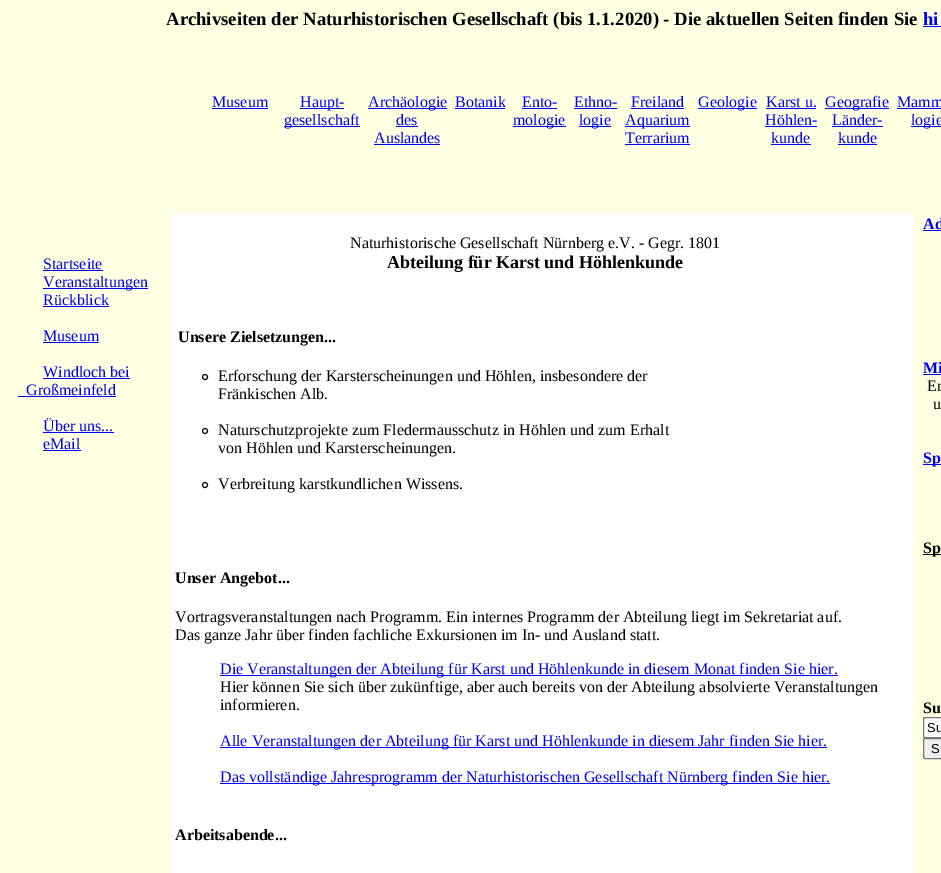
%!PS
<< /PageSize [941 873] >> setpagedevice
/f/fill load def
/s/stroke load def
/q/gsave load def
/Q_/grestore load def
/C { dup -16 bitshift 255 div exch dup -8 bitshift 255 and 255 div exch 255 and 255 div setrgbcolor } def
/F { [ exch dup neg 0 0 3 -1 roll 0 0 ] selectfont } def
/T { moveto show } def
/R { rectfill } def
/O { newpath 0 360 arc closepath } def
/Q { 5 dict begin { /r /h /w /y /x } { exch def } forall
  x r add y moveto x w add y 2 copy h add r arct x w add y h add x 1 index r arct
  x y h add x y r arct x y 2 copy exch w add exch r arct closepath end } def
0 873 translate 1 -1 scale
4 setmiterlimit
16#FFFFE2 C
0 0 941 873 R
/LiberationSerif-Bold 18.7 F
16#000000 C
(Archivseiten der Naturhistorischen Gesellschaft \(bis 1.1.2020\) - Die aktuellen Seiten finden Sie) 166 25 T
16#0000EE C
(hi) 923 25 T
923 26 18 1 R
/LiberationSerif-Regular 16 F
(Museum) 212 107 T
212 108 56 1 R
300 108 44 1 R
(Haupt-) 300 107 T
284 126 76 1 R
(gesellschaft) 284 125 T
368 108 79 1 R
(Archäologie) 368 107 T
(des) 396 125 T
396 126 22 1 R
(Auslandes) 374 143 T
374 144 66 1 R
(Botanik) 455 107 T
455 108 50 1 R
(Ento-) 522 107 T
522 108 35 1 R
513 126 53 1 R
(mologie) 513 125 T
(Ethno-) 574 107 T
574 108 43 1 R
579 126 32 1 R
(logie) 579 125 T
(Freiland) 631 107 T
631 108 53 1 R
625 126 65 1 R
(Aquarium) 625 125 T
(Terrarium) 625 143 T
625 144 65 1 R
698 108 59 1 R
(Geologie) 698 107 T
(Karst u.) 766 107 T
766 108 50 1 R
(Höhlen-) 765 125 T
765 126 52 1 R
(kunde) 771 143 T
771 144 40 1 R
825 108 64 1 R
(Geografie) 825 107 T
(Länder-) 832 125 T
832 126 51 1 R
(kunde) 838 143 T
838 144 39 1 R
(Mamm) 897 107 T
897 108 44 1 R
911 126 30 1 R
(logie) 911 125 T
(Startseite) 43 269 T
43 270 60 1 R
43 288 105 1 R
(Veranstaltungen) 43 287 T
(Rückblick) 43 305 T
43 306 66 1 R
(Museum) 43 341 T
43 342 56 1 R
(Windloch bei) 43 377 T
43 378 87 1 R
(Großmeinfeld) 26 395 T
18 396 98 1 R
(Über uns...) 43 431 T
43 432 71 1 R
(eMail) 43 449 T
43 450 38 1 R
16#FFFFFF C
172 213 741 660 R
16#000000 C
(Naturhistorische Gesellschaft Nürnberg e.V. - Gegr. 1801) 350 248 T
/LiberationSerif-Bold 18 F
(Abteilung für Karst und Höhlenkunde) 387 268 T
/LiberationSerif-Bold 16 F
(Unsere Zielsetzungen...) 178 342 T
205 377 2.5 O s
/LiberationSerif-Regular 16 F
(Erforschung der Karsterscheinungen und Höhlen, insbesondere der) 218 381 T
(Fränkischen Alb.) 218 399 T
205 431 2.5 O s
(Naturschutzprojekte zum Fledermausschutz in Höhlen und zum Erhalt) 218 435 T
(von Höhlen und Karsterscheinungen.) 218 453 T
205 485 2.5 O s
(Verbreitung karstkundlichen Wissens.) 218 489 T
/LiberationSerif-Bold 16 F
(Unser Angebot...) 175 583 T
/LiberationSerif-Regular 16 F
(Vortragsveranstaltungen nach Programm. Ein internes Programm der Abteilung liegt im Sekretariat auf.) 175 622 T
(Das ganze Jahr über finden fachliche Exkursionen im In- und Ausland statt.) 175 640 T
16#0000EE C
220 675 618 1 R
(Die Veranstaltungen der Abteilung für Karst und Höhlenkunde in diesem Monat finden Sie hier.) 220 674 T
16#000000 C
(Hier können Sie sich über zukünftige, aber auch bereits von der Abteilung absolvierte Veranstaltungen) 220 692 T
(informieren.) 220 710 T
16#0000EE C
220 747 607 1 R
(Alle Veranstaltungen der Abteilung für Karst und Höhlenkunde in diesem Jahr finden Sie hier.) 220 746 T
220 783 610 1 R
(Das vollständige Jahresprogramm der Naturhistorischen Gesellschaft Nürnberg finden Sie hier.) 220 782 T
/LiberationSerif-Bold 16 F
16#000000 C
(Arbeitsabende...) 175 840 T
16#0000EE C
(Ad) 923 229 T
923 230 18 1 R
(Mi) 923 373 T
923 374 18 1 R
/LiberationSerif-Regular 16 F
16#000000 C
(Er) 927 391 T
(u) 933 409 T
16#0000EE C
923 464 18 1 R
/LiberationSerif-Bold 16 F
(Sp) 923 463 T
16#000000 C
923 554 18 1 R
(Sp) 923 553 T
(Su) 923 713 T
16#FFFFFF C
923.5 717.5 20 20 1.5 Q q f Q_
16#767676 C
s
/LiberationSans-Regular 13 F
16#000000 C
(Su) 927 732 T
16#EFEFEF C
923.5 738.5 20 20 1.5 Q q f Q_
16#767676 C
s
16#000000 C
(S) 931 753 T
showpage
